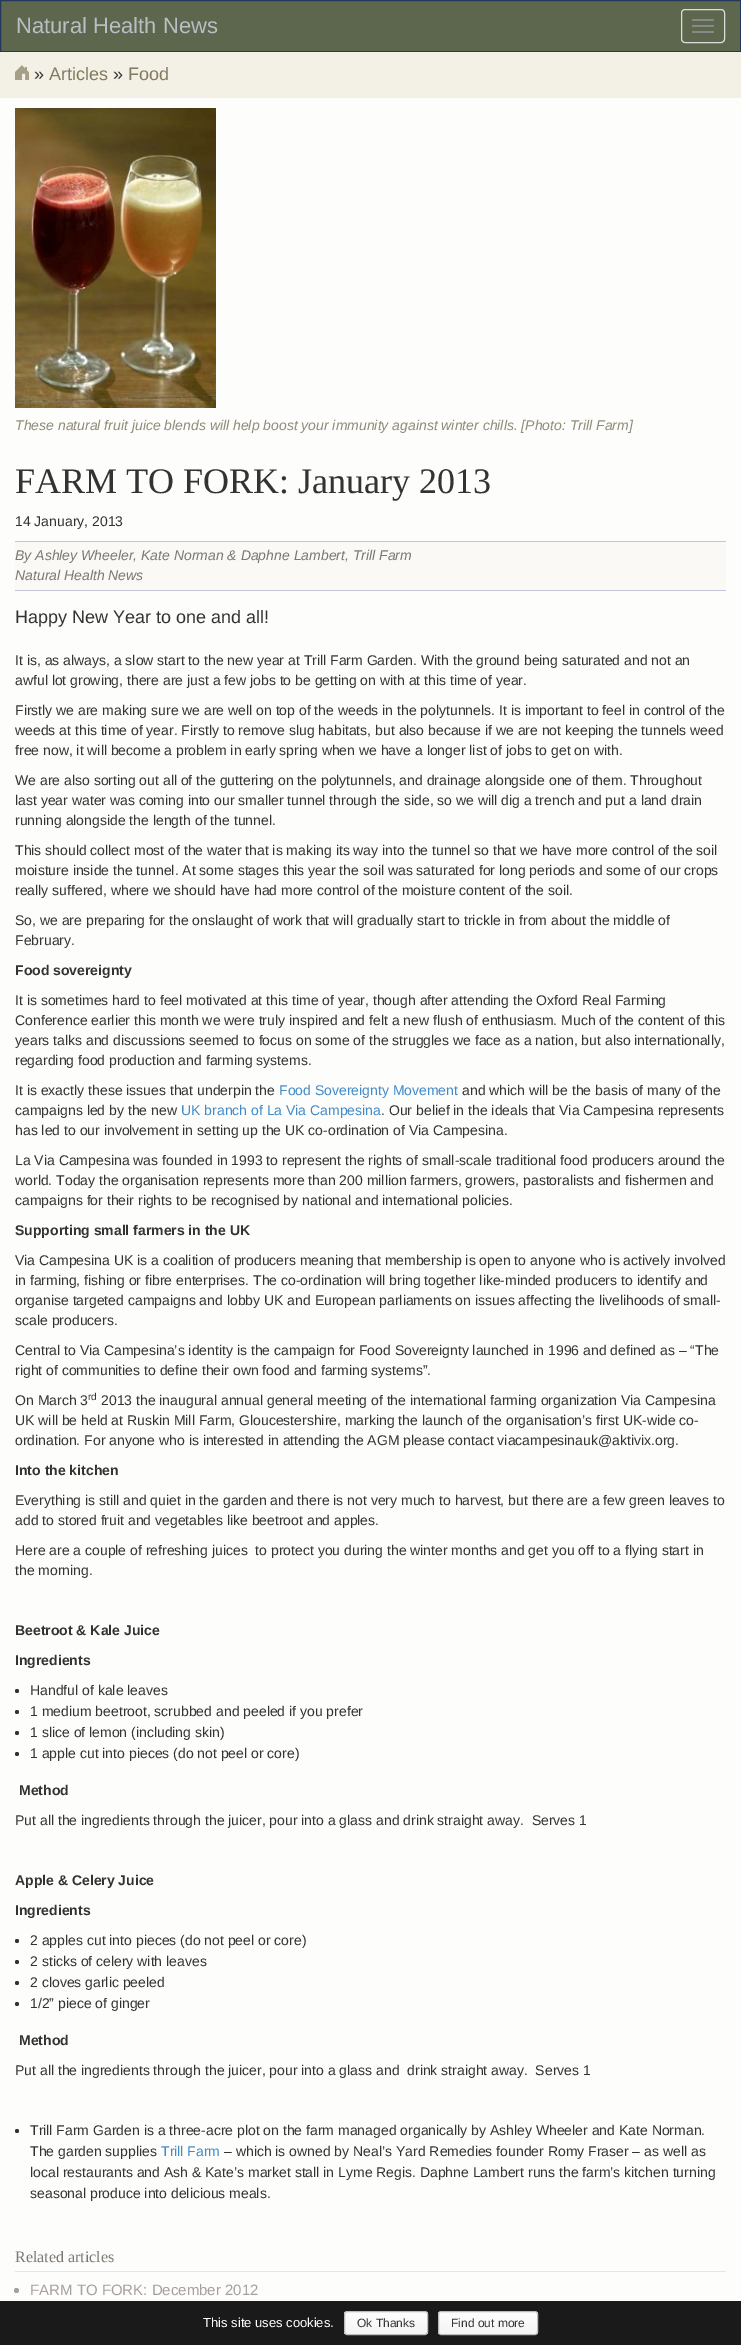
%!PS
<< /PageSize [741 2345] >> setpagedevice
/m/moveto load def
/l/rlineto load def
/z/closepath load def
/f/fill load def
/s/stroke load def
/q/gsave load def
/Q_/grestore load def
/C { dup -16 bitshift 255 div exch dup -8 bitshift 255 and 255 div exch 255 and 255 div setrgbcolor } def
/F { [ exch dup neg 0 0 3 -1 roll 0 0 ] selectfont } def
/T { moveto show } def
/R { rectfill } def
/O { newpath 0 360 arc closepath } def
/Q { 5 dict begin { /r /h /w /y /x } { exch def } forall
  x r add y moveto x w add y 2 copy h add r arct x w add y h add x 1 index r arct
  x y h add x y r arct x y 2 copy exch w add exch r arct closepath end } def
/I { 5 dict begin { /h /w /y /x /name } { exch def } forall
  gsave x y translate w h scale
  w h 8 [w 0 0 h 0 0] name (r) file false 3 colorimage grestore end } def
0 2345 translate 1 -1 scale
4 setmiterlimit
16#FDFDFB C
0 0 741 2345 R
16#5D674E C
.5 .5 m 740 0 l 0 51 l -740 0 l z q f Q_
16#24375C C
s
/LiberationSans-Regular 22 F
16#BABDC4 C
(Natural Health News) 16 33 T
16#DDDDDD C
681.5 9.5 43 33 3.5 Q s
16#888888 C
692 19 22 2 1 Q f
692 25 22 2 1 Q f
692 31 22 2 1 Q f
16#F3F1E5 C
0 52 741 46 R
(1.rgb) 15 65 14 15 I
/LiberationSans-Regular 18 F
16#333333 C
(») 34 80 T
16#827B60 C
(Articles) 49 80 T
16#333333 C
(») 113 80 T
16#827B60 C
(Food) 128 80 T
(2.rgb) 15 108 201 300 I
/LiberationSans-Italic 14 F
16#908B79 C
(These natural fruit juice blends will help boost your immunity against winter chills. [Photo: Trill Farm]) 15 430 T
/LiberationSerif-Regular 36 F
16#333333 C
(FARM TO FORK: January 2013) 15 493 T
/LiberationSans-Regular 14 F
(14 January, 2013) 15 526 T
16#FBF9F5 C
15 542 711 48 R
16#C3C7D9 C
15 541 711 1 R
15 590 711 1 R
/LiberationSans-Italic 14 F
16#7C7871 C
(By Ashley Wheeler, Kate Norman & Daphne Lambert, Trill Farm) 15 560 T
(Natural Health News) 15 580 T
/LiberationSans-Regular 18 F
16#333333 C
(Happy New Year to one and all!) 15 623 T
/LiberationSans-Regular 14 F
(It is, as always, a slow start to the new year at Trill Farm Garden. With the ground being saturated and not an) 15 665 T
(awful lot growing, there are just a few jobs to be getting on with at this time of year.) 15 685 T
(Firstly we are making sure we are well on top of the weeds in the polytunnels. It is important to feel in control of the) 15 715 T
(weeds at this time of year. Firstly to remove slug habitats, but also because if we are not keeping the tunnels weed) 15 735 T
(free now, it will become a problem in early spring when we have a longer list of jobs to get on with.) 15 755 T
(We are also sorting out all of the guttering on the polytunnels, and drainage alongside one of them. Throughout) 15 785 T
(last year water was coming into our smaller tunnel through the side, so we will dig a trench and put a land drain) 15 805 T
(running alongside the length of the tunnel.) 15 825 T
(This should collect most of the water that is making its way into the tunnel so that we have more control of the soil) 15 855 T
(moisture inside the tunnel. At some stages this year the soil was saturated for long periods and some of our crops) 15 875 T
(really suffered, where we should have had more control of the moisture content of the soil.) 15 895 T
(So, we are preparing for the onslaught of work that will gradually start to trickle in from about the middle of) 15 925 T
(February.) 15 945 T
/LiberationSans-Bold 14 F
(Food sovereignty) 15 975 T
/LiberationSans-Regular 14 F
(It is sometimes hard to feel motivated at this time of year, though after attending the Oxford Real Farming) 15 1005 T
(Conference earlier this month we were truly inspired and felt a new flush of enthusiasm. Much of the content of this) 15 1025 T
(years talks and discussions seemed to focus on some of the struggles we face as a nation, but also internationally,) 15 1045 T
(regarding food production and farming systems.) 15 1065 T
(It is exactly these issues that underpin the) 15 1095 T
16#428BCA C
(Food Sovereignty Movement) 279 1095 T
16#333333 C
(and which will be the basis of many of the) 462 1095 T
(campaigns led by the new) 15 1115 T
16#428BCA C
(UK branch of La Via Campesina) 181 1115 T
16#333333 C
(. Our belief in the ideals that Via Campesina represents) 381 1115 T
(has led to our involvement in setting up the UK co-ordination of Via Campesina.) 15 1135 T
(La Via Campesina was founded in 1993 to represent the rights of small-scale traditional food producers around the) 15 1165 T
(world. Today the organisation represents more than 200 million farmers, growers, pastoralists and fishermen and) 15 1185 T
(campaigns for their rights to be recognised by national and international policies.) 15 1205 T
/LiberationSans-Bold 14 F
(Supporting small farmers in the UK) 15 1235 T
/LiberationSans-Regular 14 F
(Via Campesina UK is a coalition of producers meaning that membership is open to anyone who is actively involved) 15 1265 T
(in farming, fishing or fibre enterprises. The co-ordination will bring together like-minded producers to identify and) 15 1285 T
(organise targeted campaigns and lobby UK and European parliaments on issues affecting the livelihoods of small-) 15 1305 T
(scale producers.) 15 1325 T
(Central to Via Campesina’s identity is the campaign for Food Sovereignty launched in 1996 and defined as – “The) 15 1355 T
(right of communities to define their own food and farming systems”.) 15 1375 T
(On March 3) 15 1405 T
/LiberationSans-Regular 10 F
(rd) 88 1400 T
/LiberationSans-Regular 14 F
(2013 the inaugural annual general meeting of the international farming organization Via Campesina) 101 1405 T
(UK will be held at Ruskin Mill Farm, Gloucestershire, marking the launch of the organisation’s first UK-wide co-) 15 1425 T
(ordination. For anyone who is interested in attending the AGM please contact viacampesinauk@aktivix.org.) 15 1445 T
/LiberationSans-Bold 14 F
(Into the kitchen) 15 1475 T
/LiberationSans-Regular 14 F
(Everything is still and quiet in the garden and there is not very much to harvest, but there are a few green leaves to) 15 1505 T
(add to stored fruit and vegetables like beetroot and apples.) 15 1525 T
(Here are a couple of refreshing juices  to protect you during the winter months and get you off to a flying start in) 15 1555 T
(the morning.) 15 1575 T
/LiberationSans-Bold 14 F
(Beetroot & Kale Juice) 15 1635 T
(Ingredients) 15 1665 T
17 1691 2 O f
/LiberationSans-Regular 14 F
(Handful of kale leaves) 30 1695 T
17 1712 2 O f
(1 medium beetroot, scrubbed and peeled if you prefer) 30 1716 T
17 1733 2 O f
(1 slice of lemon \(including skin\)) 30 1737 T
17 1754 2 O f
(1 apple cut into pieces \(do not peel or core\)) 30 1758 T
/LiberationSans-Bold 14 F
(Method) 19 1795 T
/LiberationSans-Regular 14 F
(Put all the ingredients through the juicer, pour into a glass and drink straight away.  Serves 1) 15 1825 T
/LiberationSans-Bold 14 F
(Apple & Celery Juice) 15 1885 T
(Ingredients) 15 1915 T
17 1941 2 O f
/LiberationSans-Regular 14 F
(2 apples cut into pieces \(do not peel or core\)) 30 1945 T
17 1962 2 O f
(2 sticks of celery with leaves) 30 1966 T
17 1983 2 O f
(2 cloves garlic peeled) 30 1987 T
17 2004 2 O f
(1/2” piece of ginger) 30 2008 T
/LiberationSans-Bold 14 F
(Method) 19 2045 T
/LiberationSans-Regular 14 F
(Put all the ingredients through the juicer, pour into a glass and  drink straight away.  Serves 1) 15 2075 T
17 2131 2 O f
(Trill Farm Garden is a three-acre plot on the farm managed organically by Ashley Wheeler and Kate Norman.) 30 2135 T
(The garden supplies) 30 2156 T
16#428BCA C
(Trill Farm) 161 2156 T
16#333333 C
(– which is owned by Neal’s Yard Remedies founder Romy Fraser – as well as) 224 2156 T
(local restaurants and Ash & Kate’s market stall in Lyme Regis. Daphne Lambert runs the farm’s kitchen turning) 30 2177 T
(seasonal produce into delicious meals.) 30 2198 T
16#E7E6E5 C
15 2271 711 1 R
/LiberationSerif-Regular 16 F
16#7C7871 C
(Related articles) 15 2262 T
16#A6A09F C
16.5 2290.5 2.5 O f
/LiberationSans-Regular 15 F
(FARM TO FORK: December 2012) 30 2295 T
16#1A1A1A C
0 2301 741 44 R
/LiberationSans-Regular 13 F
16#FFFFFF C
(This site uses cookies.) 203 2327 T
q
344 2311 84 24 3 Q clip newpath
q 344 2312 m 84 0 l 0 22 l -84 0 l z clip newpath
<< /ShadingType 2 /ColorSpace /DeviceRGB /Coords [386 2312 386 2334] /Extend [true true] /Function << /FunctionType 2 /Domain [0 1] /C0 [.996 .996 .996] /C1 [.957 .957 .957] /N 1 >> >> shfill Q_
Q_
16#BBBBBB C
344.5 2311.5 83 23 2.5 Q s
/LiberationSans-Regular 12 F
16#333333 C
(Ok Thanks) 357 2327 T
q
438 2311 100 24 3 Q clip newpath
q 438 2312 m 100 0 l 0 22 l -100 0 l z clip newpath
<< /ShadingType 2 /ColorSpace /DeviceRGB /Coords [488 2312 488 2334] /Extend [true true] /Function << /FunctionType 2 /Domain [0 1] /C0 [.996 .996 .996] /C1 [.957 .957 .957] /N 1 >> >> shfill Q_
Q_
16#BBBBBB C
438.5 2311.5 99 23 2.5 Q s
16#333333 C
(Find out more) 451 2327 T
showpage
